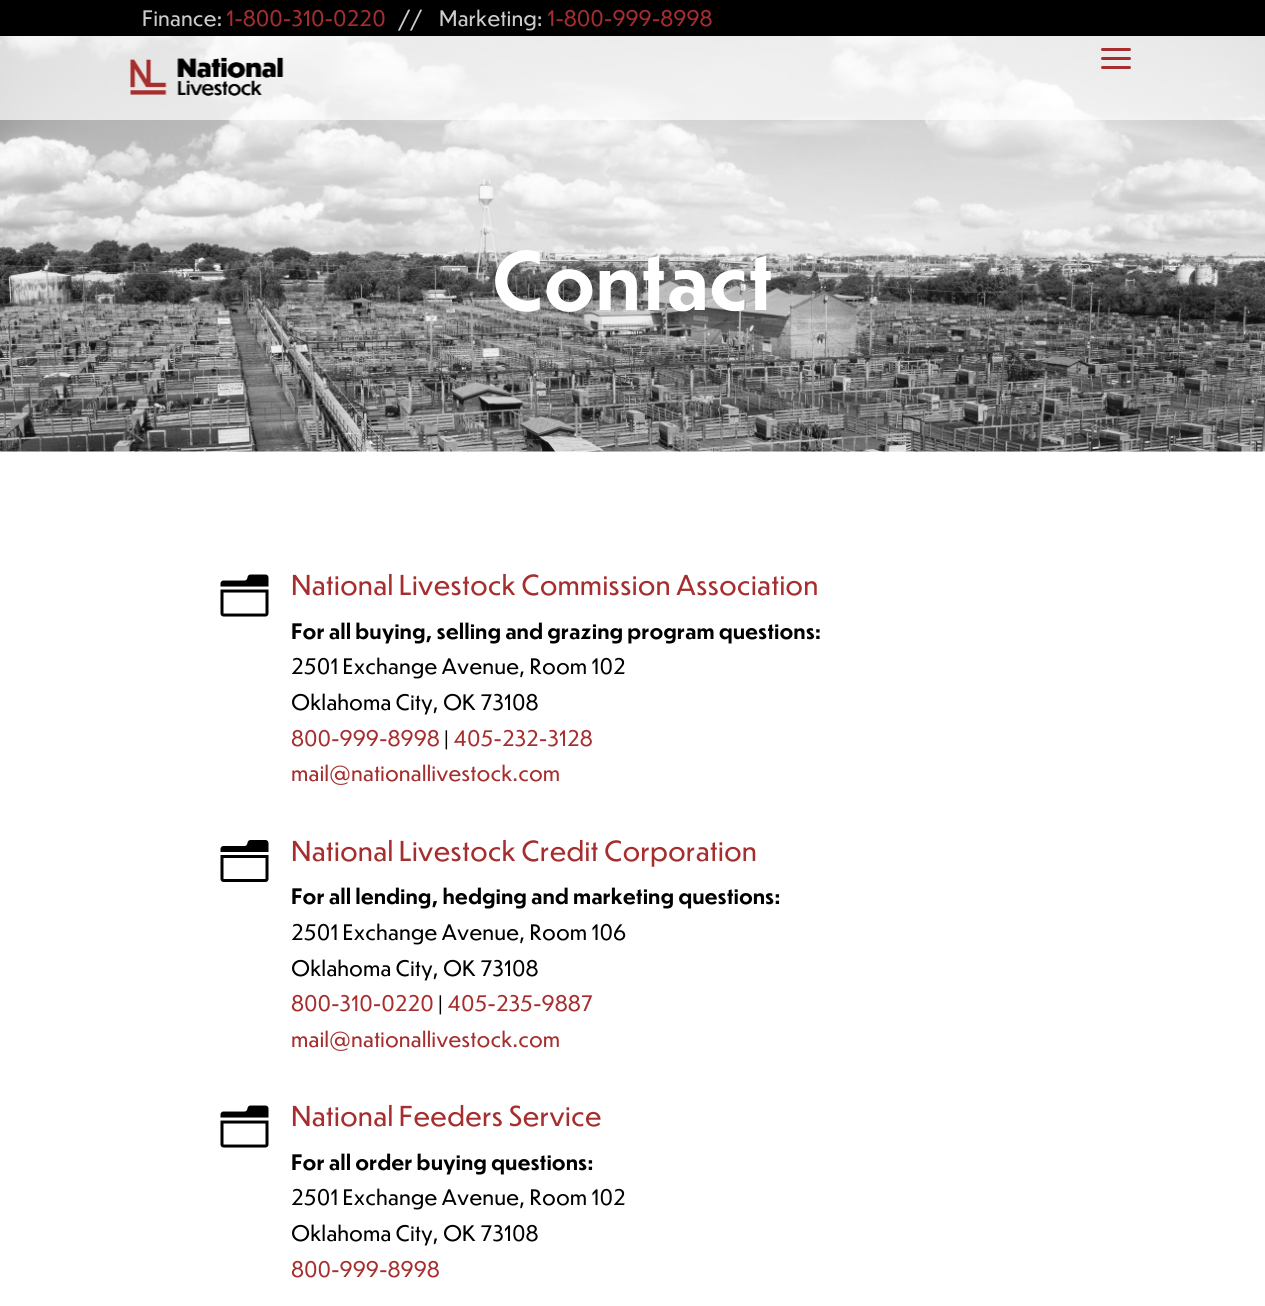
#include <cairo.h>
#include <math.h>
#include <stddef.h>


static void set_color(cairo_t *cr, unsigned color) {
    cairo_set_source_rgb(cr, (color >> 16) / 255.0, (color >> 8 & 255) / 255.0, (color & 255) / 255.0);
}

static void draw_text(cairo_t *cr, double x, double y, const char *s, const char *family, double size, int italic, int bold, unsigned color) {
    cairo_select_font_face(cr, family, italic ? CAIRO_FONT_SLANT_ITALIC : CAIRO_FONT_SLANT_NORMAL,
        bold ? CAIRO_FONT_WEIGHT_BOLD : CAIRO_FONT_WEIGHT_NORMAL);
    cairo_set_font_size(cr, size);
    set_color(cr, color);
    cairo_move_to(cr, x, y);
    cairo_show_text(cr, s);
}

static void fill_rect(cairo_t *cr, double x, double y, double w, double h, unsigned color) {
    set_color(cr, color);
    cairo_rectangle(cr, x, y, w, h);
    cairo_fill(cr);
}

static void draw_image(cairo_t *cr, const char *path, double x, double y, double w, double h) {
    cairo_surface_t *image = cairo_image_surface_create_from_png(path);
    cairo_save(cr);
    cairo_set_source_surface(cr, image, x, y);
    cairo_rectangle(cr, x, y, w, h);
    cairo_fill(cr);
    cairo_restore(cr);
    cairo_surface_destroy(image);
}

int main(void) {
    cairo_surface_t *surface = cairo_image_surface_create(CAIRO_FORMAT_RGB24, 1265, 1306);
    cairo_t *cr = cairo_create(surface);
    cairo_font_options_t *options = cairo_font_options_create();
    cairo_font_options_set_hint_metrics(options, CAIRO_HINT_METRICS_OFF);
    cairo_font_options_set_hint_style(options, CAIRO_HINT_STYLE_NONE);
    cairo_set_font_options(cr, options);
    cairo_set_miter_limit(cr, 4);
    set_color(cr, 0x000000);
    cairo_paint(cr);
    draw_text(cr, 142, 26, "Finance:", "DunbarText", 21, 0, 0, 0xCCCCCC);
    draw_text(cr, 226, 26, "1-800-310-0220", "DunbarText", 21, 0, 0, 0xA62E2E);
    draw_text(cr, 399, 26, "//", "DunbarText", 21, 0, 0, 0xCCCCCC);
    draw_text(cr, 439, 26, "Marketing:", "DunbarText", 21, 0, 0, 0xCCCCCC);
    draw_text(cr, 547, 26, "1-800-999-8998", "DunbarText", 21, 0, 0, 0xA62E2E);
    fill_rect(cr, 0, 451, 1265, 855, 0xFFFFFF);
    draw_image(cr, "assets/img3.png", 0, 36, 1265, 416);
    cairo_set_source_rgba(cr, 1, 1, 1, 0.69);
    cairo_rectangle(cr, 0, 36, 1265, 84);
    cairo_fill(cr);
    draw_image(cr, "assets/img1.png", 130, 57, 154, 39);
    draw_image(cr, "assets/img2.png", 1101, 48, 30, 21);
    draw_text(cr, 492, 310, "Contact", "DunbarText", 78, 0, 1, 0xFFFFFF);
    draw_image(cr, "assets/img4.png", 220, 574, 49, 43);
    draw_text(cr, 291, 595, "National Livestock Commission Association", "DunbarText", 27, 0, 0, 0xA62E2E);
    draw_text(cr, 291, 639, "For all buying, selling and grazing program questions:", "DunbarText", 21, 0, 1, 0x000000);
    draw_text(cr, 291, 674, "2501 Exchange Avenue, Room 102", "DunbarText", 21, 0, 0, 0x000000);
    draw_text(cr, 291, 710, "Oklahoma City, OK 73108", "DunbarText", 21, 0, 0, 0x000000);
    draw_text(cr, 291, 746, "800-999-8998", "DunbarText", 21, 0, 0, 0xA62E2E);
    draw_text(cr, 444, 746, "|", "DunbarText", 21, 0, 0, 0x000000);
    draw_text(cr, 453, 746, "405-232-3128", "DunbarText", 21, 0, 0, 0xA62E2E);
    draw_text(cr, 291, 781, "mail@nationallivestock.com", "DunbarText", 21, 0, 0, 0xA62E2E);
    draw_image(cr, "assets/img5.png", 220, 840, 49, 42);
    draw_text(cr, 291, 861, "National Livestock Credit Corporation", "DunbarText", 27, 0, 0, 0xA62E2E);
    draw_text(cr, 291, 904, "For all lending, hedging and marketing questions:", "DunbarText", 21, 0, 1, 0x000000);
    draw_text(cr, 291, 940, "2501 Exchange Avenue, Room 106", "DunbarText", 21, 0, 0, 0x000000);
    draw_text(cr, 291, 976, "Oklahoma City, OK 73108", "DunbarText", 21, 0, 0, 0x000000);
    draw_text(cr, 291, 1011, "800-310-0220", "DunbarText", 21, 0, 0, 0xA62E2E);
    draw_text(cr, 438, 1011, "|", "DunbarText", 21, 0, 0, 0x000000);
    draw_text(cr, 447, 1011, "405-235-9887", "DunbarText", 21, 0, 0, 0xA62E2E);
    draw_text(cr, 291, 1047, "mail@nationallivestock.com", "DunbarText", 21, 0, 0, 0xA62E2E);
    draw_image(cr, "assets/img4.png", 220, 1105, 49, 43);
    draw_text(cr, 291, 1126, "National Feeders Service", "DunbarText", 27, 0, 0, 0xA62E2E);
    draw_text(cr, 291, 1170, "For all order buying questions:", "DunbarText", 21, 0, 1, 0x000000);
    draw_text(cr, 291, 1205, "2501 Exchange Avenue, Room 102", "DunbarText", 21, 0, 0, 0x000000);
    draw_text(cr, 291, 1241, "Oklahoma City, OK 73108", "DunbarText", 21, 0, 0, 0x000000);
    draw_text(cr, 291, 1277, "800-999-8998", "DunbarText", 21, 0, 0, 0xA62E2E);
    cairo_surface_write_to_png(surface, "output.png");
    cairo_font_options_destroy(options);
    cairo_destroy(cr);
    cairo_surface_destroy(surface);
    return 0;
}
